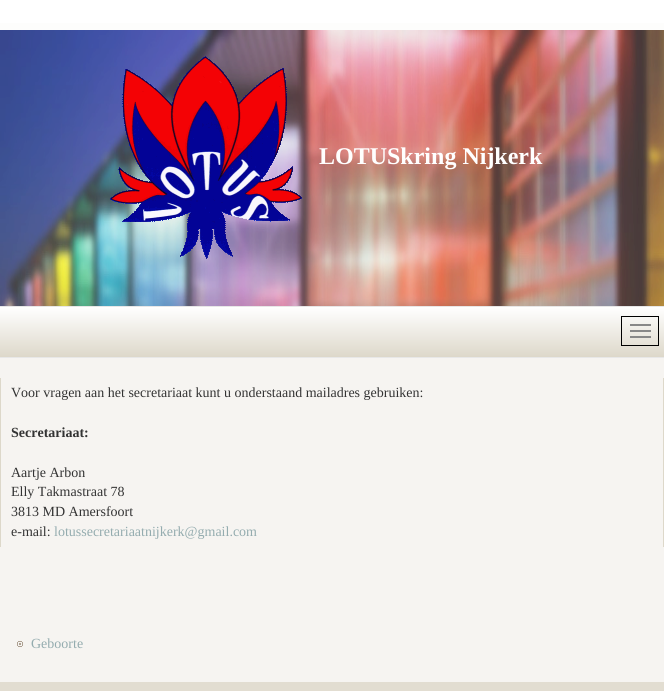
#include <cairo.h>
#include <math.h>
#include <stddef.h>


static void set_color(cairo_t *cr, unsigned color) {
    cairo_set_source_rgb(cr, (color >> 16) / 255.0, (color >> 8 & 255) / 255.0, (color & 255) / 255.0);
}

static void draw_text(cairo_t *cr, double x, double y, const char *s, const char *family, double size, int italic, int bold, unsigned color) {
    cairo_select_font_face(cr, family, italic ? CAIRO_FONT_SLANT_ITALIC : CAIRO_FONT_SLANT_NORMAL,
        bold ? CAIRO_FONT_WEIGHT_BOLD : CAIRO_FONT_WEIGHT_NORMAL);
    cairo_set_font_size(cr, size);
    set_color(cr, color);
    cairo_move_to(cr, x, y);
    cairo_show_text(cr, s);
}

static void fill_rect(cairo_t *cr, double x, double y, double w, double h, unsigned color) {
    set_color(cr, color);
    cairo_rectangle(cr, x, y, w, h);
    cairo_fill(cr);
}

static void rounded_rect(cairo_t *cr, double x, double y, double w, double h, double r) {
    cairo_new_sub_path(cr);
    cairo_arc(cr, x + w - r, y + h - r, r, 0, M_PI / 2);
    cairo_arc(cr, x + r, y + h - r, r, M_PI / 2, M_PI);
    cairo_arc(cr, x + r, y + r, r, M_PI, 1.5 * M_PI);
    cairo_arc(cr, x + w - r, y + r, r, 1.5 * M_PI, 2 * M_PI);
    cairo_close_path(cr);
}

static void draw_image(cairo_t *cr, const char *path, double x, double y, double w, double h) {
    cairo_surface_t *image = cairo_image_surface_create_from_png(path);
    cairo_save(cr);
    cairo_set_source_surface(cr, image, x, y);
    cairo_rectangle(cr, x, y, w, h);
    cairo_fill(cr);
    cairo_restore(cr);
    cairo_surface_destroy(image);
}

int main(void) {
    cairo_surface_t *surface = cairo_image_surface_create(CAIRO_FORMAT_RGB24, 664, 691);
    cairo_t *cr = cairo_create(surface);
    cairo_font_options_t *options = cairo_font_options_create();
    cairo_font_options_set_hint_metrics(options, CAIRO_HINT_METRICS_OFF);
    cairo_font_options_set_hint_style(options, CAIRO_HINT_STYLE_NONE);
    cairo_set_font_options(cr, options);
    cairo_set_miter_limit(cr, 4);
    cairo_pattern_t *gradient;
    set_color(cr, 0xFFFFFF);
    cairo_paint(cr);
    gradient = cairo_pattern_create_linear(332, 0, 332, 691);
    cairo_pattern_add_color_stop_rgba(gradient, 0, 1, 1, 1, 1);
    cairo_pattern_add_color_stop_rgba(gradient, 1, 0.808, 0.776, 0.702, 1);
    cairo_set_source(cr, gradient);
    cairo_pattern_destroy(gradient);
    cairo_rectangle(cr, 0, 23, 664, 8);
    cairo_fill(cr);
    set_color(cr, 0xF6F4F1);
    rounded_rect(cr, 0, 30, 664, 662, 1);
    cairo_fill(cr);
    draw_image(cr, "assets/img1.png", 0, 30, 664, 276);
    draw_image(cr, "assets/img2.png", 110, 56, 192, 203);
    draw_text(cr, 319, 164, "LOTUSkring Nijkerk", "Liberation Serif", 24, 0, 1, 0xFFFFFF);
    gradient = cairo_pattern_create_linear(332, 307, 332, 357);
    cairo_pattern_add_color_stop_rgba(gradient, 0, 1, 1, 1, 1);
    cairo_pattern_add_color_stop_rgba(gradient, 1, 0.867, 0.847, 0.792, 1);
    cairo_set_source(cr, gradient);
    cairo_pattern_destroy(gradient);
    cairo_rectangle(cr, 0, 307, 664, 50);
    cairo_fill(cr);
    fill_rect(cr, 0, 306, 664, 1, 0xE7E7E7);
    fill_rect(cr, 0, 357, 664, 1, 0xE7E7E7);
    cairo_rectangle(cr, 621.5, 316.5, 37, 29);
    set_color(cr, 0x000000);
    cairo_set_line_width(cr, 1);
    cairo_stroke(cr);
    fill_rect(cr, 630, 324, 21, 2, 0x888888);
    fill_rect(cr, 630, 330, 21, 2, 0x888888);
    fill_rect(cr, 630, 336, 21, 2, 0x888888);
    fill_rect(cr, 663, 378, 1, 169, 0xDDD8CA);
    fill_rect(cr, 0, 378, 1, 169, 0xDDD8CA);
    draw_text(cr, 11, 397, "Voor vragen aan het secretariaat kunt u onderstaand mailadres gebruiken:", "Liberation Serif", 14, 0, 0, 0x333333);
    draw_text(cr, 11, 437, "Secretariaat:", "Liberation Serif", 14, 0, 1, 0x333333);
    draw_text(cr, 11, 477, "Aartje Arbon", "Liberation Serif", 14, 0, 0, 0x333333);
    draw_text(cr, 11, 496, "Elly Takmastraat 78", "Liberation Serif", 14, 0, 0, 0x333333);
    draw_text(cr, 11, 516, "3813 MD Amersfoort", "Liberation Serif", 14, 0, 0, 0x333333);
    draw_text(cr, 11, 536, "e-mail:", "Liberation Serif", 14, 0, 0, 0x333333);
    draw_text(cr, 54, 536, "lotussecretariaatnijkerk@gmail.com", "Liberation Serif", 14, 0, 0, 0x94ACAF);
    draw_image(cr, "assets/img3.png", 17, 641, 6, 6);
    draw_text(cr, 31, 648, "Geboorte", "Liberation Serif", 14, 0, 0, 0x94ACAF);
    fill_rect(cr, 0, 682, 664, 9, 0xE2DDD1);
    cairo_surface_write_to_png(surface, "output.png");
    cairo_font_options_destroy(options);
    cairo_destroy(cr);
    cairo_surface_destroy(surface);
    return 0;
}
